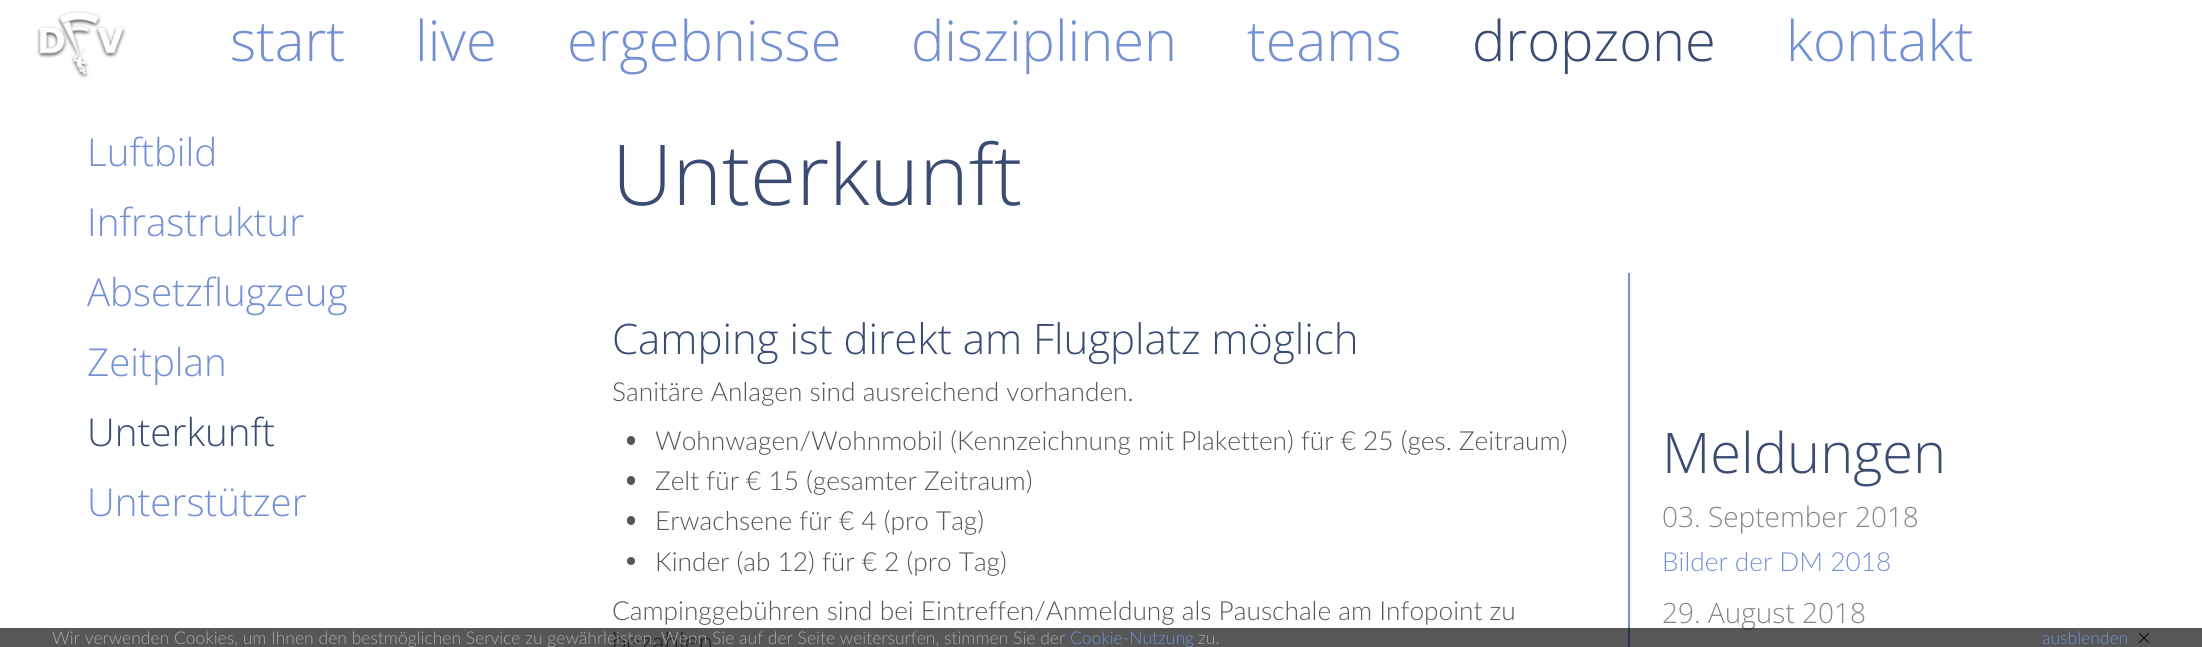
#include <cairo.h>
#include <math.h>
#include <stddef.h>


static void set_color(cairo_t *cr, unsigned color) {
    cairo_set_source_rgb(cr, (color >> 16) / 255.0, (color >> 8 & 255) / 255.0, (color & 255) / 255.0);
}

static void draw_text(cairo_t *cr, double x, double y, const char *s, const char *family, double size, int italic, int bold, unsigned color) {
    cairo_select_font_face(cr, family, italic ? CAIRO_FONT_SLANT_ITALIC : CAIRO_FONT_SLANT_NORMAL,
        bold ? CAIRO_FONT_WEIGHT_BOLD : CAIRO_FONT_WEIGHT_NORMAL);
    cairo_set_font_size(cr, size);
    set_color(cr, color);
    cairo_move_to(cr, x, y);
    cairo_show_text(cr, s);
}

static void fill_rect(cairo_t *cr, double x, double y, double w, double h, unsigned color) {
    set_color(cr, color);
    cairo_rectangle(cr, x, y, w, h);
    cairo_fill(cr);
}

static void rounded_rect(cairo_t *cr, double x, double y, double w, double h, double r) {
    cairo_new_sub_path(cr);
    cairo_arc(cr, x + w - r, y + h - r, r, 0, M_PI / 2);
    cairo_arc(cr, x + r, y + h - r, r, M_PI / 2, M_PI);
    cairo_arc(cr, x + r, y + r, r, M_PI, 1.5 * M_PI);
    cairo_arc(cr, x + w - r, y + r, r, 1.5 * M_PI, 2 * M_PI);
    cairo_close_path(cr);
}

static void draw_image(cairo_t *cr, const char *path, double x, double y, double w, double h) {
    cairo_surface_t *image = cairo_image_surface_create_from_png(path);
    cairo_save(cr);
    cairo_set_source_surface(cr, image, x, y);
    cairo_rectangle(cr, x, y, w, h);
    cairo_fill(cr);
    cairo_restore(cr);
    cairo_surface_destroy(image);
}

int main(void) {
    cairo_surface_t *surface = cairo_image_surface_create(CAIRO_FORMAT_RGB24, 2202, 647);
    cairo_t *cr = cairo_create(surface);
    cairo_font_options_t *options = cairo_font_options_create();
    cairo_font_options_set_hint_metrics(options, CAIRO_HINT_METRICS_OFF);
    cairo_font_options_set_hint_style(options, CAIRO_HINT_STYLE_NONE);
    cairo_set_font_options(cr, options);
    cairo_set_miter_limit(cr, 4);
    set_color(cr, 0xFFFFFF);
    cairo_paint(cr);
    draw_image(cr, "assets/img1.png", 37, 11, 89, 67);
    draw_text(cr, 230, 61, "start", "Open Sans Light", 56, 0, 0, 0x7490D4);
    draw_text(cr, 415, 61, "live", "Open Sans Light", 56, 0, 0, 0x7490D4);
    draw_text(cr, 567, 61, "ergebnisse", "Open Sans Light", 56, 0, 0, 0x7490D4);
    draw_text(cr, 911, 61, "disziplinen", "Open Sans Light", 56, 0, 0, 0x7490D4);
    draw_text(cr, 1247, 61, "teams", "Open Sans Light", 56, 0, 0, 0x7490D4);
    draw_text(cr, 1472, 61, "dropzone", "Open Sans Light", 56, 0, 0, 0x3B4C73);
    draw_text(cr, 1786, 61, "kontakt", "Open Sans Light", 56, 0, 0, 0x7490D4);
    draw_text(cr, 87, 166, "Luftbild", "Open Sans Light", 38.5, 0, 0, 0x7490D4);
    draw_text(cr, 87, 236, "Infrastruktur", "Open Sans Light", 38.5, 0, 0, 0x7490D4);
    draw_text(cr, 87, 306, "Absetzflugzeug", "Open Sans Light", 38.5, 0, 0, 0x7490D4);
    draw_text(cr, 87, 376, "Zeitplan", "Open Sans Light", 38.5, 0, 0, 0x7490D4);
    draw_text(cr, 87, 446, "Unterkunft", "Open Sans Light", 38.5, 0, 0, 0x3B4C73);
    draw_text(cr, 87, 516, "Unterstützer", "Open Sans Light", 38.5, 0, 0, 0x7490D4);
    draw_text(cr, 612, 205, "Unterkunft", "Open Sans Light", 84, 0, 0, 0x3B4C73);
    draw_text(cr, 612, 354, "Camping ist direkt am Flugplatz möglich", "Open Sans Light", 42, 0, 0, 0x3B4C73);
    draw_text(cr, 612, 401, "Sanitäre Anlagen sind ausreichend vorhanden.", "Lato Light", 26.25, 0, 0, 0x555555);
    rounded_rect(cr, 627, 436, 8, 9, 4);
    cairo_fill(cr);
    draw_text(cr, 655, 450, "Wohnwagen/Wohnmobil (Kennzeichnung mit Plaketten) für € 25 (ges. Zeitraum)", "Lato Light", 26.25, 0, 0, 0x555555);
    rounded_rect(cr, 627, 476, 8, 9, 4);
    cairo_fill(cr);
    draw_text(cr, 655, 490, "Zelt für € 15 (gesamter Zeitraum)", "Lato Light", 26.25, 0, 0, 0x555555);
    rounded_rect(cr, 627, 516, 8, 9, 4);
    cairo_fill(cr);
    draw_text(cr, 655, 530, "Erwachsene für € 4 (pro Tag)", "Lato Light", 26.25, 0, 0, 0x555555);
    cairo_new_path(cr);
    cairo_arc(cr, 631, 561, 4, 0, 2 * M_PI);
    cairo_fill(cr);
    draw_text(cr, 655, 571, "Kinder (ab 12) für € 2 (pro Tag)", "Lato Light", 26.25, 0, 0, 0x555555);
    draw_text(cr, 612, 620, "Campinggebühren sind bei Eintreffen/Anmeldung als Pauschale am Infopoint zu", "Lato Light", 26.25, 0, 0, 0x555555);
    draw_text(cr, 612, 651, "bezahlen", "Lato Light", 26.25, 0, 0, 0x555555);
    fill_rect(cr, 1628, 273, 2, 374, 0x7490D4);
    draw_text(cr, 1662, 473, "Meldungen", "Open Sans Light", 56, 0, 0, 0x3B4C73);
    draw_text(cr, 1662, 527, "03. September 2018", "Open Sans Light", 28, 0, 0, 0x888888);
    draw_text(cr, 1662, 571, "Bilder der DM 2018", "Lato Light", 26.25, 0, 0, 0x7490D4);
    draw_text(cr, 1662, 623, "29. August 2018", "Open Sans Light", 28, 0, 0, 0x888888);
    cairo_set_source_rgba(cr, 0, 0, 0, 0.66);
    cairo_rectangle(cr, 0, 628, 2202, 19);
    cairo_fill(cr);
    draw_text(cr, 52, 644, "Wir verwenden Cookies, um Ihnen den bestmöglichen Service zu gewährleisten. Wenn Sie auf der Seite weitersurfen, stimmen Sie der", "Lato Light", 17.5, 0, 0, 0xAAAAAA);
    draw_text(cr, 1070, 644, "Cookie-Nutzung", "Lato Light", 17.5, 0, 0, 0x7490D4);
    draw_text(cr, 1198, 644, "zu.", "Lato Light", 17.5, 0, 0, 0xAAAAAA);
    draw_text(cr, 2042, 644, "ausblenden", "Lato Light", 17.5, 0, 0, 0x7490D4);
    draw_text(cr, 2137, 646, "×", "Lato Light", 24, 0, 0, 0x000000);
    cairo_surface_write_to_png(surface, "output.png");
    cairo_font_options_destroy(options);
    cairo_destroy(cr);
    cairo_surface_destroy(surface);
    return 0;
}
